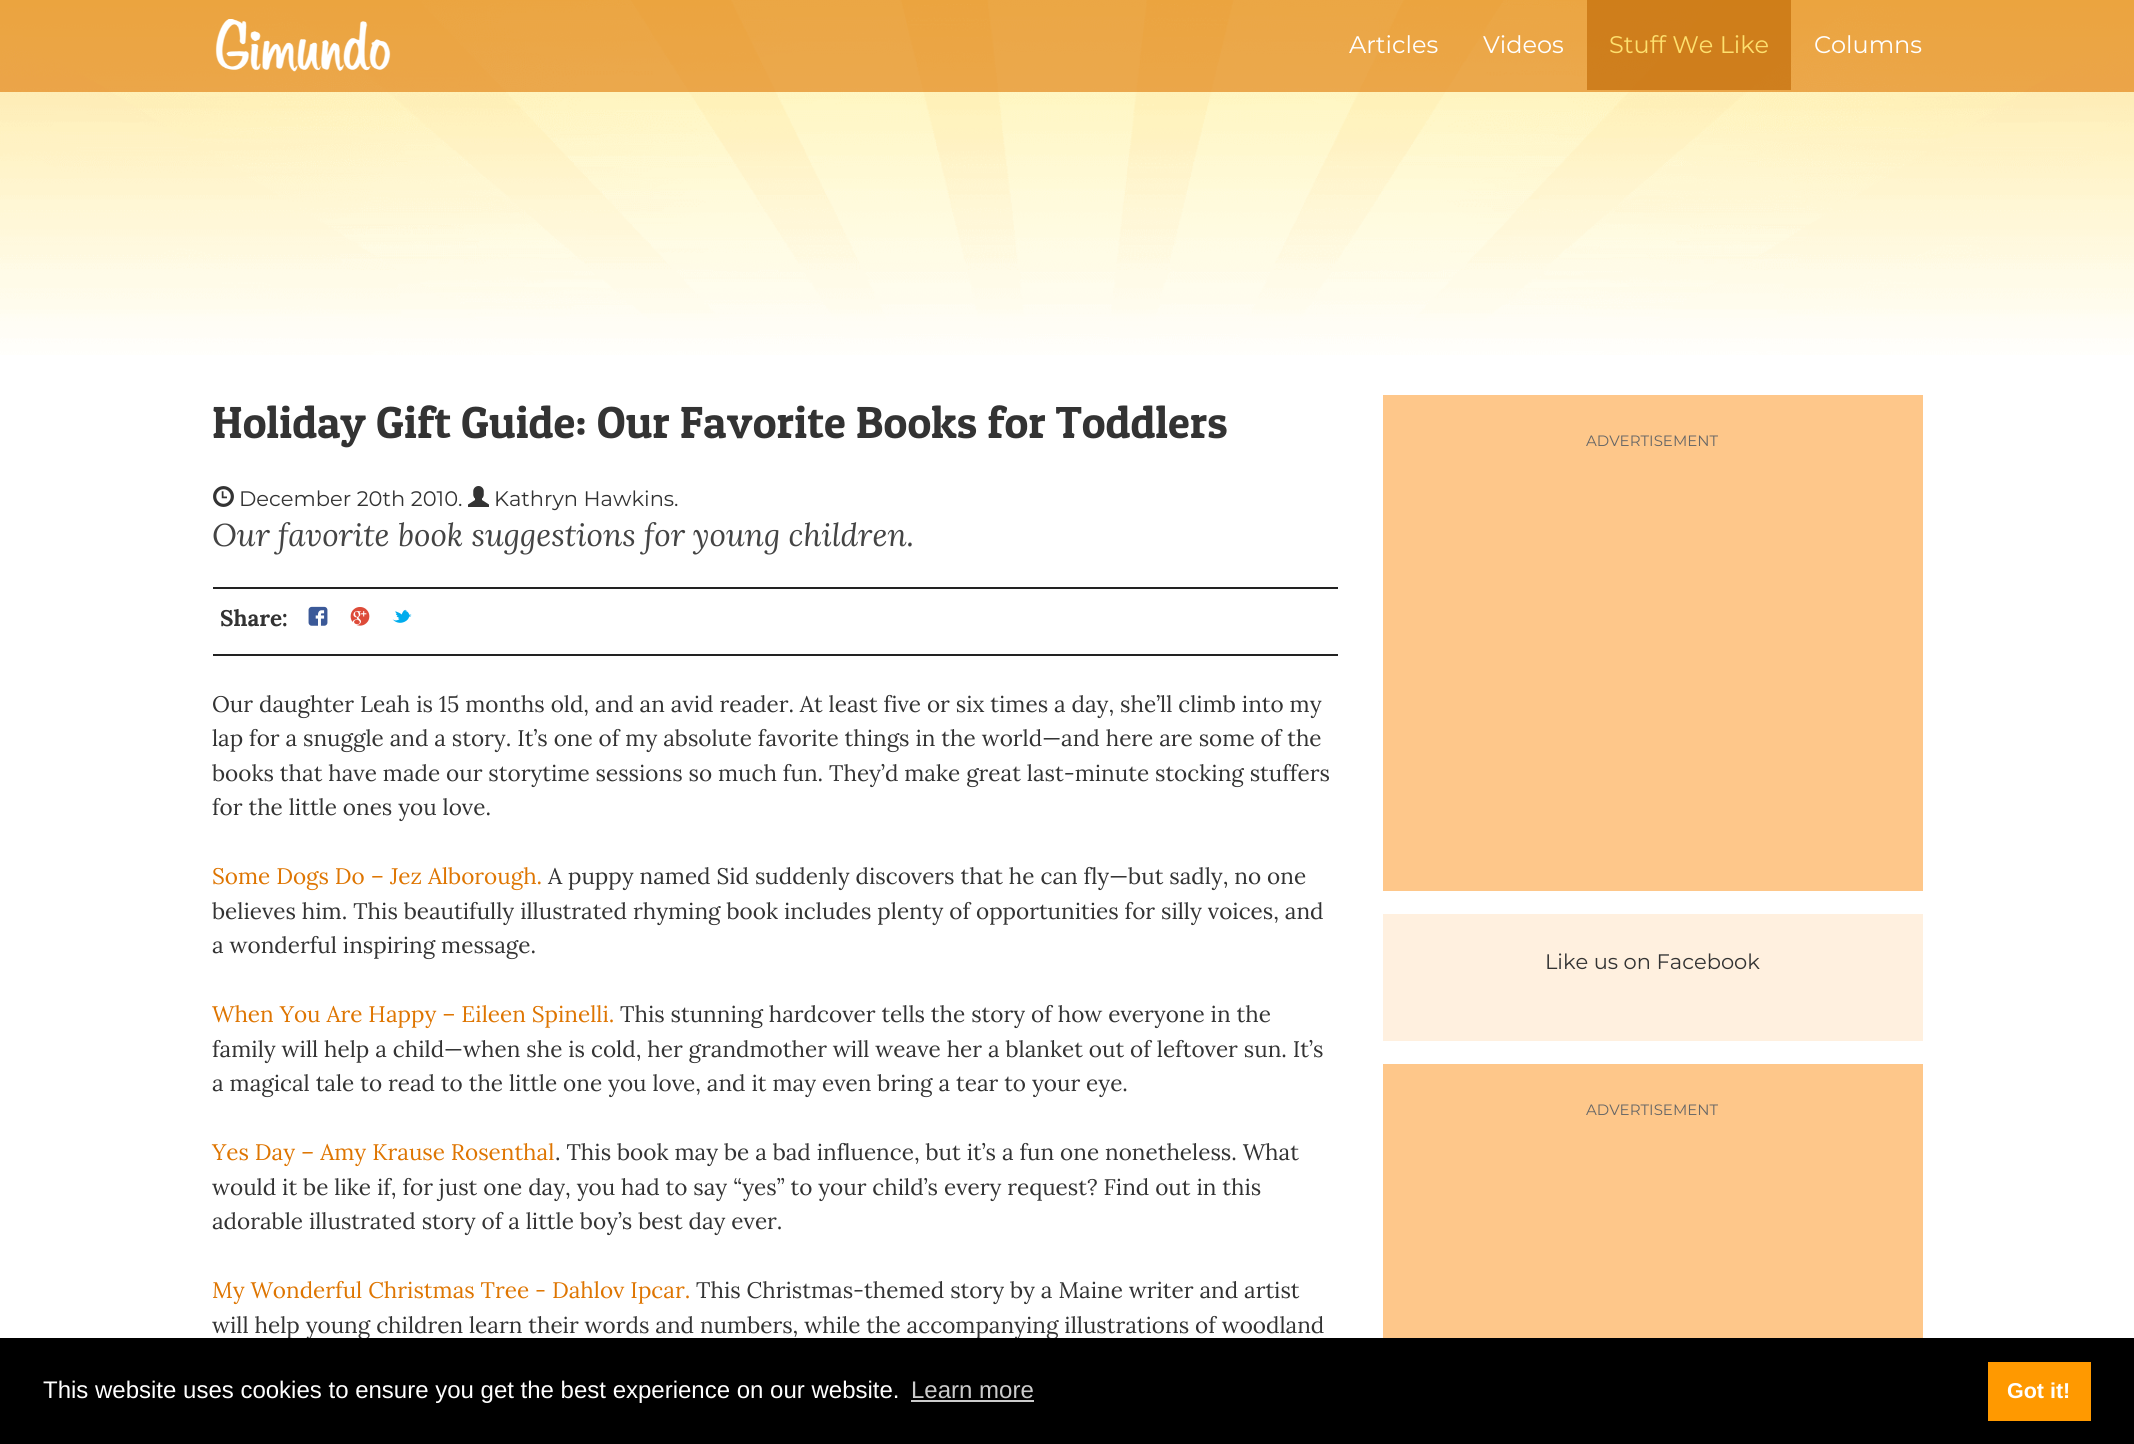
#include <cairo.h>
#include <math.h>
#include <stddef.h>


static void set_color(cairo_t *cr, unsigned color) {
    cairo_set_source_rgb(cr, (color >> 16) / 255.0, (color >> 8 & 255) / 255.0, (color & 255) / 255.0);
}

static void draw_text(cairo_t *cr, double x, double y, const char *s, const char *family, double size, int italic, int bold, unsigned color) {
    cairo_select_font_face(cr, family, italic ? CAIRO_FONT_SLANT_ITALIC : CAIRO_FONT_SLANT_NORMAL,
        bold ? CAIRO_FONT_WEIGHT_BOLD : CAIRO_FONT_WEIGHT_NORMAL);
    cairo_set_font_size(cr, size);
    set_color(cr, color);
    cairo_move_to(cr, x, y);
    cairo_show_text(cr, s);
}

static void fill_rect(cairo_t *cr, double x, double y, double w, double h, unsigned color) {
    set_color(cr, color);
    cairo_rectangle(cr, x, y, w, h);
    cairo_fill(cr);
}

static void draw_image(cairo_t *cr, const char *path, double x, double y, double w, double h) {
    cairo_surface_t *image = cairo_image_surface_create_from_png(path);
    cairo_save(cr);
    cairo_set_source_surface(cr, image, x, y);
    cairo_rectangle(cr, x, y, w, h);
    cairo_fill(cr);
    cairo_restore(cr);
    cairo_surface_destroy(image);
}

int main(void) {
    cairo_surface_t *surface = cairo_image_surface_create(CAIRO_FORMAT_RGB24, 2134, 1444);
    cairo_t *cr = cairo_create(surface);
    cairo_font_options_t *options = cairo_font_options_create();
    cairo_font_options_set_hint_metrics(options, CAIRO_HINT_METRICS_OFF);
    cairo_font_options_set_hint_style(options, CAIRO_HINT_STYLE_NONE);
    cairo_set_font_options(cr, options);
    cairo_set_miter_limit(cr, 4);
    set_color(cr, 0xFFFFFF);
    cairo_paint(cr);
    draw_image(cr, "assets/img1.png", 0, 0, 2134, 355);
    cairo_set_source_rgba(cr, 0.871, 0.459, 0.004, 0.6);
    cairo_rectangle(cr, 0, 0, 2134, 92);
    cairo_fill(cr);
    draw_image(cr, "assets/img2.png", 215, 19, 176, 53);
    draw_text(cr, 1349, 53, "Articles", "Montserrat Thin", 24, 0, 0, 0xFFFFFF);
    draw_text(cr, 1483, 53, "Videos", "Montserrat Thin", 24, 0, 0, 0xFFFFFF);
    cairo_set_source_rgba(cr, 0.741, 0.392, 0.004, 0.6);
    cairo_rectangle(cr, 1587, 0, 204, 90);
    cairo_fill(cr);
    draw_text(cr, 1609, 53, "Stuff We Like", "Montserrat Thin", 24, 0, 0, 0xFDE06E);
    draw_text(cr, 1814, 53, "Columns", "Montserrat Thin", 24, 0, 0, 0xFFFFFF);
    draw_text(cr, 212, 438, "Holiday Gift Guide: Our Favorite Books for Toddlers", "Patua One", 45, 0, 0, 0x333333);
    draw_image(cr, "assets/img3.png", 213, 486, 21, 21);
    draw_text(cr, 239, 506, "December 20th 2010.", "Montserrat Thin", 21, 0, 0, 0x333333);
    draw_image(cr, "assets/img4.png", 468, 486, 21, 21);
    draw_text(cr, 494, 506, "Kathryn Hawkins.", "Montserrat Thin", 21, 0, 0, 0x333333);
    draw_text(cr, 212, 546, "Our favorite book suggestions for young children.", "Lora", 31.5, 1, 0, 0x444444);
    fill_rect(cr, 213, 587, 1125, 2, 0x222222);
    fill_rect(cr, 213, 654, 1125, 2, 0x222222);
    draw_text(cr, 220, 626, "Share:", "Lora", 22.5, 0, 1, 0x333333);
    draw_image(cr, "assets/img5.png", 308, 606, 20, 20);
    draw_image(cr, "assets/img6.png", 350, 607, 20, 19);
    draw_image(cr, "assets/img7.png", 392, 609, 20, 14);
    draw_text(cr, 212, 712, "Our daughter Leah is 15 months old, and an avid reader. At least five or six times a day, she’ll climb into my", "Lora", 22.5, 0, 0, 0x333333);
    draw_text(cr, 212, 746, "lap for a snuggle and a story. It’s one of my absolute favorite things in the world—and here are some of the", "Lora", 22.5, 0, 0, 0x333333);
    draw_text(cr, 212, 781, "books that have made our storytime sessions so much fun. They’d make great last-minute stocking stuffers", "Lora", 22.5, 0, 0, 0x333333);
    draw_text(cr, 212, 815, "for the little ones you love.", "Lora", 22.5, 0, 0, 0x333333);
    draw_text(cr, 212, 884, "Some Dogs Do – Jez Alborough.", "Lora", 22.5, 0, 0, 0xDE7501);
    draw_text(cr, 548, 884, "A puppy named Sid suddenly discovers that he can fly—but sadly, no one", "Lora", 22.5, 0, 0, 0x333333);
    draw_text(cr, 212, 919, "believes him. This beautifully illustrated rhyming book includes plenty of opportunities for silly voices, and", "Lora", 22.5, 0, 0, 0x333333);
    draw_text(cr, 212, 953, "a wonderful inspiring message.", "Lora", 22.5, 0, 0, 0x333333);
    draw_text(cr, 212, 1022, "When You Are Happy – Eileen Spinelli.", "Lora", 22.5, 0, 0, 0xDE7501);
    draw_text(cr, 620, 1022, "This stunning hardcover tells the story of how everyone in the", "Lora", 22.5, 0, 0, 0x333333);
    draw_text(cr, 212, 1057, "family will help a child—when she is cold, her grandmother will weave her a blanket out of leftover sun. It’s", "Lora", 22.5, 0, 0, 0x333333);
    draw_text(cr, 212, 1091, "a magical tale to read to the little one you love, and it may even bring a tear to your eye.", "Lora", 22.5, 0, 0, 0x333333);
    draw_text(cr, 212, 1160, "Yes Day – Amy Krause Rosenthal", "Lora", 22.5, 0, 0, 0xDE7501);
    draw_text(cr, 555, 1160, ". This book may be a bad influence, but it’s a fun one nonetheless. What", "Lora", 22.5, 0, 0, 0x333333);
    draw_text(cr, 212, 1195, "would it be like if, for just one day, you had to say “yes” to your child’s every request? Find out in this", "Lora", 22.5, 0, 0, 0x333333);
    draw_text(cr, 212, 1229, "adorable illustrated story of a little boy’s best day ever.", "Lora", 22.5, 0, 0, 0x333333);
    draw_text(cr, 212, 1298, "My Wonderful Christmas Tree - Dahlov Ipcar.", "Lora", 22.5, 0, 0, 0xDE7501);
    draw_text(cr, 696, 1298, "This Christmas-themed story by a Maine writer and artist", "Lora", 22.5, 0, 0, 0x333333);
    draw_text(cr, 212, 1333, "will help young children learn their words and numbers, while the accompanying illustrations of woodland", "Lora", 22.5, 0, 0, 0x333333);
    fill_rect(cr, 1383, 395, 540, 496, 0xFEC78A);
    draw_text(cr, 1586, 446, "ADVERTISEMENT", "Montserrat Thin", 15, 0, 0, 0x666666);
    fill_rect(cr, 1383, 914, 540, 127, 0xFFF0DF);
    draw_text(cr, 1545, 969, "Like us on Facebook", "Montserrat Thin", 21, 0, 0, 0x333333);
    fill_rect(cr, 1383, 1064, 540, 274, 0xFEC78A);
    draw_text(cr, 1586, 1115, "ADVERTISEMENT", "Montserrat Thin", 15, 0, 0, 0x666666);
    fill_rect(cr, 0, 1338, 2134, 106, 0x000000);
    draw_text(cr, 43, 1398, "This website uses cookies to ensure you get the best experience on our website.", "Liberation Sans", 24, 0, 0, 0xFFFFFF);
    draw_text(cr, 911, 1398, "Learn more", "Liberation Sans", 24, 0, 0, 0xCCCCCC);
    fill_rect(cr, 911, 1400, 123, 2, 0xCCCCCC);
    fill_rect(cr, 1988, 1362, 103, 59, 0xFF9900);
    draw_text(cr, 2007, 1398, "Got it!", "Liberation Sans", 21.5, 0, 1, 0xFFFFFF);
    cairo_surface_write_to_png(surface, "output.png");
    cairo_font_options_destroy(options);
    cairo_destroy(cr);
    cairo_surface_destroy(surface);
    return 0;
}
